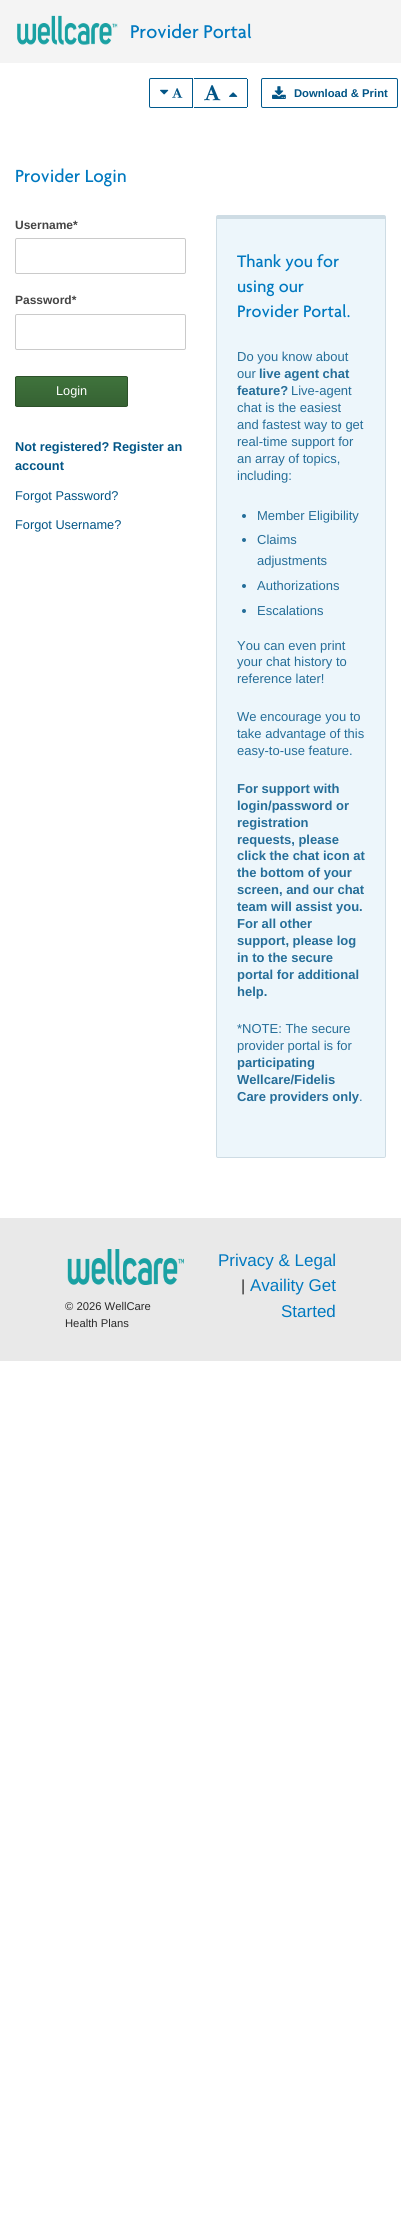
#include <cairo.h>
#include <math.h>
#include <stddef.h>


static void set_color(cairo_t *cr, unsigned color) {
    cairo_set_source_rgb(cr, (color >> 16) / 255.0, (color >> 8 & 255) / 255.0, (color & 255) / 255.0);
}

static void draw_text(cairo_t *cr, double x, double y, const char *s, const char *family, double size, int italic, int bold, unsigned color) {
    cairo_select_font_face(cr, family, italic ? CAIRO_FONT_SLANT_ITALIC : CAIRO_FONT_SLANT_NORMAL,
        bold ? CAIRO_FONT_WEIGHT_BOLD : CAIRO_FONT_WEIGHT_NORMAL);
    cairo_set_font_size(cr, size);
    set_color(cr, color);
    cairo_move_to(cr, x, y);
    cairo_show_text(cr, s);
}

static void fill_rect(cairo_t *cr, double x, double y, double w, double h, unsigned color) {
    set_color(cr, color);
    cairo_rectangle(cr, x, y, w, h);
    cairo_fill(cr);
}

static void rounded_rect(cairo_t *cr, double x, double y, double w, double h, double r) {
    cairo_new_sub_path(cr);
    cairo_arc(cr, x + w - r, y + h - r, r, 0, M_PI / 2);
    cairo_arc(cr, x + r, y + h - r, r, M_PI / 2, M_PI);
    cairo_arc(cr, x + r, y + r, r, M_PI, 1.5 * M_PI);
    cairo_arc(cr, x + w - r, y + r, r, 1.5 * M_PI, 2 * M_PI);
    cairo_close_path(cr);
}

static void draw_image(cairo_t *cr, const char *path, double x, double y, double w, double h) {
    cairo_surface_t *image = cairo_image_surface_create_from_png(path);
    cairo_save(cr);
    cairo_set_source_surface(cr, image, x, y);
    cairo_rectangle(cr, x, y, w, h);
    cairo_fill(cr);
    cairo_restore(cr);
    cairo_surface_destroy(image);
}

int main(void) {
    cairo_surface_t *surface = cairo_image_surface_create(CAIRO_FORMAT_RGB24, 401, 2229);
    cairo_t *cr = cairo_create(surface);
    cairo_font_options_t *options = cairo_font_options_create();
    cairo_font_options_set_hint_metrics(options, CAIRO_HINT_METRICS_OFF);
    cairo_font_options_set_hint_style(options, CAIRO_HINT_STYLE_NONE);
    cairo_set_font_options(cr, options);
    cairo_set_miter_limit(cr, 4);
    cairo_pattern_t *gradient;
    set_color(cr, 0xFFFFFF);
    cairo_paint(cr);
    fill_rect(cr, 0, 0, 401, 63, 0xF4F4F4);
    draw_image(cr, "assets/img1.png", 17, 15, 101, 30);
    draw_text(cr, 130, 38, "Provider Portal", "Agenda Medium", 20, 0, 0, 0x0079C0);
    cairo_new_path(cr);
    cairo_move_to(cr, 151, 78.5);
    cairo_line_to(cr, 192.5, 78.5);
    cairo_line_to(cr, 192.5, 107.5);
    cairo_line_to(cr, 151, 107.5);
    cairo_curve_to(cr, 150, 107.5, 149.5, 107, 149.5, 106);
    cairo_line_to(cr, 149.5, 80);
    cairo_curve_to(cr, 149.5, 79, 150, 78.5, 151, 78.5);
    cairo_close_path(cr);
    set_color(cr, 0x00598D);
    cairo_set_line_width(cr, 1);
    cairo_stroke(cr);
    draw_image(cr, "assets/img2.png", 160, 89, 9, 6);
    draw_image(cr, "assets/img3.png", 172, 88, 11, 10);
    fill_rect(cr, 194, 78, 53, 1, 0x00598D);
    fill_rect(cr, 247, 79, 1, 28, 0x00598D);
    fill_rect(cr, 194, 107, 53, 1, 0x00598D);
    draw_image(cr, "assets/img4.png", 204, 85, 17, 16);
    draw_image(cr, "assets/img5.png", 229, 92, 9, 5);
    rounded_rect(cr, 261.5, 78.5, 136, 29, 1.5);
    cairo_stroke(cr);
    draw_image(cr, "assets/img6.png", 272, 86, 14, 13);
    draw_text(cr, 294, 97, "Download & Print", "Liberation Sans", 11.25, 0, 1, 0x025586);
    draw_text(cr, 15, 182, "Provider Login", "Agenda Medium", 19, 0, 0, 0x0079C0);
    draw_text(cr, 15, 229, "Username*", "Liberation Sans", 12, 0, 1, 0x444444);
    rounded_rect(cr, 15.5, 238.5, 170, 35, 1.5);
    set_color(cr, 0xCACACA);
    cairo_stroke(cr);
    draw_text(cr, 15, 304, "Password*", "Liberation Sans", 12, 0, 1, 0x444444);
    rounded_rect(cr, 15.5, 314.5, 170, 35, 1.5);
    set_color(cr, 0xCACACA);
    cairo_stroke(cr);
    cairo_save(cr);
    rounded_rect(cr, 15, 376, 113, 31, 2);
    cairo_clip(cr);
    gradient = cairo_pattern_create_linear(72, 377, 72, 406);
    cairo_pattern_add_color_stop_rgba(gradient, 0, 0.247, 0.451, 0.235, 1);
    cairo_pattern_add_color_stop_rgba(gradient, 1, 0.212, 0.384, 0.2, 1);
    cairo_set_source(cr, gradient);
    cairo_pattern_destroy(gradient);
    cairo_rectangle(cr, 15, 377, 113, 29);
    cairo_fill(cr);
    cairo_restore(cr);
    rounded_rect(cr, 15.5, 376.5, 112, 30, 1.5);
    set_color(cr, 0x2D512A);
    cairo_stroke(cr);
    draw_text(cr, 56, 395, "Login", "Liberation Sans", 12.75, 0, 0, 0xFFFFFF);
    draw_text(cr, 15, 451, "Not registered? Register an", "Liberation Sans", 12.75, 0, 1, 0x025586);
    draw_text(cr, 15, 470, "account", "Liberation Sans", 12.75, 0, 1, 0x025586);
    draw_text(cr, 15, 500, "Forgot Password?", "Liberation Sans", 12.75, 0, 0, 0x025586);
    draw_text(cr, 15, 529, "Forgot Username?", "Liberation Sans", 12.75, 0, 0, 0x025586);
    set_color(cr, 0xEDF6FB);
    cairo_new_path(cr);
    cairo_move_to(cr, 218, 219);
    cairo_line_to(cr, 385, 219);
    cairo_line_to(cr, 385, 1156);
    cairo_curve_to(cr, 385, 1157, 385, 1157, 384, 1157);
    cairo_line_to(cr, 218, 1157);
    cairo_curve_to(cr, 217, 1157, 217, 1157, 217, 1156);
    cairo_line_to(cr, 217, 219);
    cairo_close_path(cr);
    cairo_fill(cr);
    rounded_rect(cr, 216.5, 215.5, 169, 942, 1.5);
    set_color(cr, 0xCEDCE4);
    cairo_stroke(cr);
    fill_rect(cr, 217, 216, 168, 3, 0xCEDCE4);
    draw_text(cr, 237, 267, "Thank you for", "Agenda Medium", 18, 0, 0, 0x0079C0);
    draw_text(cr, 237, 292, "using our", "Agenda Medium", 18, 0, 0, 0x0079C0);
    draw_text(cr, 237, 317, "Provider Portal.", "Agenda Medium", 18, 0, 0, 0x0079C0);
    draw_text(cr, 237, 361, "Do you know about", "Liberation Sans", 13, 0, 0, 0x256E99);
    draw_text(cr, 237, 378, "our", "Liberation Sans", 13, 0, 0, 0x256E99);
    draw_text(cr, 259, 378, "live agent chat", "Liberation Sans", 13, 0, 1, 0x256E99);
    draw_text(cr, 237, 395, "feature?", "Liberation Sans", 13, 0, 1, 0x256E99);
    draw_text(cr, 291, 395, "Live-agent", "Liberation Sans", 13, 0, 0, 0x256E99);
    draw_text(cr, 237, 412, "chat is the easiest", "Liberation Sans", 13, 0, 0, 0x256E99);
    draw_text(cr, 237, 429, "and fastest way to get", "Liberation Sans", 13, 0, 0, 0x256E99);
    draw_text(cr, 237, 446, "real-time support for", "Liberation Sans", 13, 0, 0, 0x256E99);
    draw_text(cr, 237, 463, "an array of topics,", "Liberation Sans", 13, 0, 0, 0x256E99);
    draw_text(cr, 237, 480, "including:", "Liberation Sans", 13, 0, 0, 0x256E99);
    cairo_new_path(cr);
    cairo_arc(cr, 244, 516, 2, 0, 2 * M_PI);
    cairo_fill(cr);
    draw_text(cr, 257, 520, "Member Eligibility", "Liberation Sans", 13, 0, 0, 0x256E99);
    cairo_new_path(cr);
    cairo_arc(cr, 244, 540, 2, 0, 2 * M_PI);
    cairo_fill(cr);
    draw_text(cr, 257, 544, "Claims", "Liberation Sans", 13, 0, 0, 0x256E99);
    draw_text(cr, 257, 565, "adjustments", "Liberation Sans", 13, 0, 0, 0x256E99);
    cairo_new_path(cr);
    cairo_arc(cr, 244, 586, 2, 0, 2 * M_PI);
    cairo_fill(cr);
    draw_text(cr, 257, 590, "Authorizations", "Liberation Sans", 13, 0, 0, 0x256E99);
    cairo_new_path(cr);
    cairo_arc(cr, 244, 611, 2, 0, 2 * M_PI);
    cairo_fill(cr);
    draw_text(cr, 257, 615, "Escalations", "Liberation Sans", 13, 0, 0, 0x256E99);
    draw_text(cr, 237, 650, "You can even print", "Liberation Sans", 13, 0, 0, 0x256E99);
    draw_text(cr, 237, 666, "your chat history to", "Liberation Sans", 13, 0, 0, 0x256E99);
    draw_text(cr, 237, 683, "reference later!", "Liberation Sans", 13, 0, 0, 0x256E99);
    draw_text(cr, 237, 721, "We encourage you to", "Liberation Sans", 13, 0, 0, 0x256E99);
    draw_text(cr, 237, 738, "take advantage of this", "Liberation Sans", 13, 0, 0, 0x256E99);
    draw_text(cr, 237, 755, "easy-to-use feature.", "Liberation Sans", 13, 0, 0, 0x256E99);
    draw_text(cr, 237, 793, "For support with", "Liberation Sans", 13, 0, 1, 0x256E99);
    draw_text(cr, 237, 810, "login/password or", "Liberation Sans", 13, 0, 1, 0x256E99);
    draw_text(cr, 237, 827, "registration", "Liberation Sans", 13, 0, 1, 0x256E99);
    draw_text(cr, 237, 844, "requests, please", "Liberation Sans", 13, 0, 1, 0x256E99);
    draw_text(cr, 237, 860, "click the chat icon at", "Liberation Sans", 13, 0, 1, 0x256E99);
    draw_text(cr, 237, 877, "the bottom of your", "Liberation Sans", 13, 0, 1, 0x256E99);
    draw_text(cr, 237, 894, "screen, and our chat", "Liberation Sans", 13, 0, 1, 0x256E99);
    draw_text(cr, 237, 911, "team will assist you.", "Liberation Sans", 13, 0, 1, 0x256E99);
    draw_text(cr, 237, 928, "For all other", "Liberation Sans", 13, 0, 1, 0x256E99);
    draw_text(cr, 237, 945, "support, please log", "Liberation Sans", 13, 0, 1, 0x256E99);
    draw_text(cr, 237, 962, "in to the secure", "Liberation Sans", 13, 0, 1, 0x256E99);
    draw_text(cr, 237, 979, "portal for additional", "Liberation Sans", 13, 0, 1, 0x256E99);
    draw_text(cr, 237, 996, "help.", "Liberation Sans", 13, 0, 1, 0x256E99);
    draw_text(cr, 237, 1033, "*NOTE: The secure", "Liberation Sans", 13, 0, 0, 0x256E99);
    draw_text(cr, 237, 1050, "provider portal is for", "Liberation Sans", 13, 0, 0, 0x256E99);
    draw_text(cr, 237, 1067, "participating", "Liberation Sans", 13, 0, 1, 0x256E99);
    draw_text(cr, 237, 1084, "Wellcare/Fidelis", "Liberation Sans", 13, 0, 1, 0x256E99);
    draw_text(cr, 237, 1101, "Care providers only", "Liberation Sans", 13, 0, 1, 0x256E99);
    draw_text(cr, 359, 1101, ".", "Liberation Sans", 13, 0, 0, 0x256E99);
    fill_rect(cr, 0, 1218, 401, 143, 0xE9E9E9);
    draw_image(cr, "assets/img7.png", 67, 1249, 117, 36);
    draw_text(cr, 65, 1310, "© 2026 WellCare", "Liberation Sans", 11.25, 0, 0, 0x2A2A2A);
    draw_text(cr, 65, 1327, "Health Plans", "Liberation Sans", 11.25, 0, 0, 0x2A2A2A);
    draw_text(cr, 218, 1266, "Privacy & Legal", "Liberation Sans", 17, 0, 0, 0x0079C0);
    draw_text(cr, 241, 1291, "|", "Liberation Sans", 16, 0, 0, 0x2A2A2A);
    draw_text(cr, 250, 1291, "Availity Get", "Liberation Sans", 17, 0, 0, 0x0079C0);
    draw_text(cr, 281, 1317, "Started", "Liberation Sans", 17, 0, 0, 0x0079C0);
    cairo_surface_write_to_png(surface, "output.png");
    cairo_font_options_destroy(options);
    cairo_destroy(cr);
    cairo_surface_destroy(surface);
    return 0;
}
